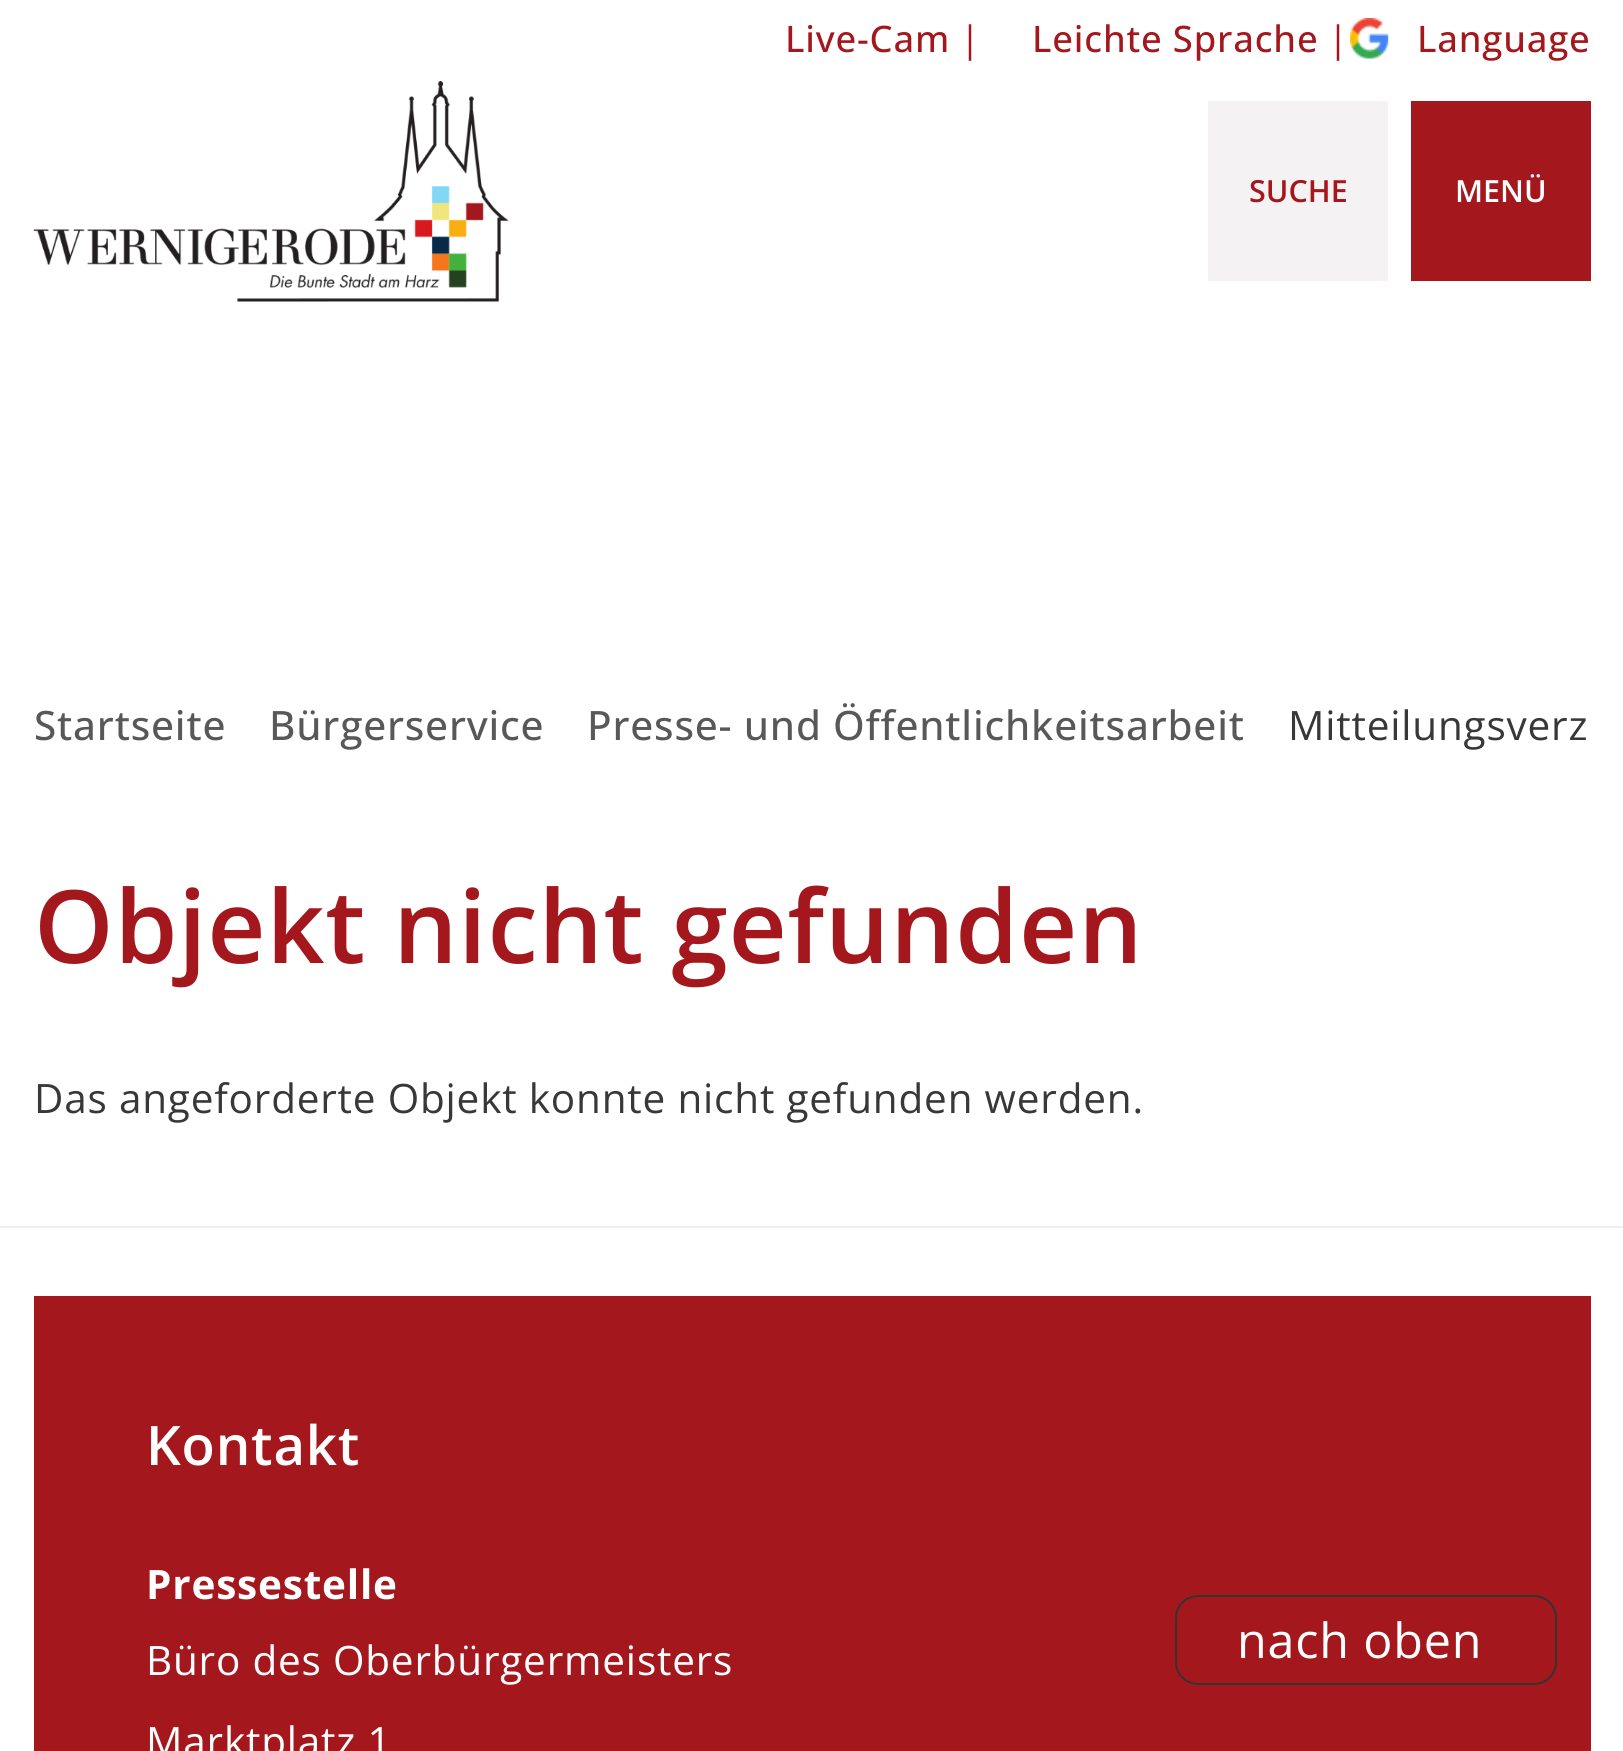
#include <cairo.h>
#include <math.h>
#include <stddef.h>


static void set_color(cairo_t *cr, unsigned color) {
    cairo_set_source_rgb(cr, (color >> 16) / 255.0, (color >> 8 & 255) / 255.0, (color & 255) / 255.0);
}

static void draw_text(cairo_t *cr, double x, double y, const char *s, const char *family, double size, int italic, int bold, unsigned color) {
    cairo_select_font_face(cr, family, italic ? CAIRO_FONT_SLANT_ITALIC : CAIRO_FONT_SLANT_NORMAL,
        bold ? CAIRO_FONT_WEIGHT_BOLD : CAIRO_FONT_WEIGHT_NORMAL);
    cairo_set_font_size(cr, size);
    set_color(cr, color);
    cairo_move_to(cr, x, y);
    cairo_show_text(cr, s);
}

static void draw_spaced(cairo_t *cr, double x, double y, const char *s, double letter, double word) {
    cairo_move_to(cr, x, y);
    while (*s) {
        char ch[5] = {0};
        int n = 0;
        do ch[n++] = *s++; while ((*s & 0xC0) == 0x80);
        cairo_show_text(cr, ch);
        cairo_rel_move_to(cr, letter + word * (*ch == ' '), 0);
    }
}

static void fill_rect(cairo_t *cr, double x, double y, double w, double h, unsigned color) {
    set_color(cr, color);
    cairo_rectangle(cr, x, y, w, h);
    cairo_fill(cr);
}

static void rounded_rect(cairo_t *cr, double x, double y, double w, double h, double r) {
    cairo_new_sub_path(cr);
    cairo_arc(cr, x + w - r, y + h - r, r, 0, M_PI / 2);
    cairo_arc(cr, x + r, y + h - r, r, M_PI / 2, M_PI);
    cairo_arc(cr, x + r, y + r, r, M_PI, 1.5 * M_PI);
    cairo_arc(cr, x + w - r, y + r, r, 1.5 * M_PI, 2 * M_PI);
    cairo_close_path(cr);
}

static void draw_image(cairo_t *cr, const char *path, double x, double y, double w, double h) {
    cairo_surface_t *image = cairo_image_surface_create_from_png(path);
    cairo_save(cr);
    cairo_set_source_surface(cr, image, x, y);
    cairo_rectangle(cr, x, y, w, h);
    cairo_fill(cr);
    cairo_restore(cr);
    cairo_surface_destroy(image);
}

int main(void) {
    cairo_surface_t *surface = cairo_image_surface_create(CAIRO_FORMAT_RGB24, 1623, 1751);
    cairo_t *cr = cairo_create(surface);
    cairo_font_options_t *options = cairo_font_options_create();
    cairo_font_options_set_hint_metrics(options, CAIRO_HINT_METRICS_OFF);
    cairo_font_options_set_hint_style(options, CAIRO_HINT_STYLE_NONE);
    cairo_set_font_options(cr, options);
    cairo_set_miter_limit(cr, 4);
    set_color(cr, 0xFFFFFF);
    cairo_paint(cr);
    cairo_select_font_face(cr, "Open Sans Medium", CAIRO_FONT_SLANT_NORMAL, CAIRO_FONT_WEIGHT_NORMAL);
    cairo_set_font_size(cr, 36.5);
    set_color(cr, 0xA4181D);
    draw_spaced(cr, 785, 52, "Live-Cam", 0.8, 0);
    cairo_select_font_face(cr, "Open Sans", CAIRO_FONT_SLANT_NORMAL, CAIRO_FONT_WEIGHT_NORMAL);
    draw_spaced(cr, 960, 52, "|", 0.8, 0);
    cairo_select_font_face(cr, "Open Sans Medium", CAIRO_FONT_SLANT_NORMAL, CAIRO_FONT_WEIGHT_NORMAL);
    draw_spaced(cr, 1032, 52, "Leichte Sprache", 0.8, 0);
    cairo_select_font_face(cr, "Open Sans", CAIRO_FONT_SLANT_NORMAL, CAIRO_FONT_WEIGHT_NORMAL);
    draw_spaced(cr, 1328, 52, "|", 0.8, 0);
    draw_image(cr, "assets/img1.png", 1350, 18, 39, 41);
    cairo_select_font_face(cr, "Open Sans Medium", CAIRO_FONT_SLANT_NORMAL, CAIRO_FONT_WEIGHT_NORMAL);
    draw_spaced(cr, 1417, 52, "Language", 0.8, 0);
    draw_image(cr, "assets/img2.png", 33, 81, 476, 221);
    fill_rect(cr, 1208, 101, 180, 180, 0xF5F2F4);
    draw_text(cr, 1249, 202, "SUCHE", "Open Sans SemiBold", 30.5, 0, 0, 0xA4181D);
    fill_rect(cr, 1411, 101, 180, 180, 0xA4181D);
    draw_text(cr, 1455, 202, "MENÜ", "Open Sans SemiBold", 30.5, 0, 0, 0xFFFFFF);
    cairo_select_font_face(cr, "Open Sans Medium", CAIRO_FONT_SLANT_NORMAL, CAIRO_FONT_WEIGHT_NORMAL);
    cairo_set_font_size(cr, 40.5);
    set_color(cr, 0x585858);
    draw_spaced(cr, 34, 740, "Startseite", 0.8, 0);
    draw_spaced(cr, 269, 740, "Bürgerservice", 0.8, 0);
    draw_spaced(cr, 587, 740, "Presse- und Öffentlichkeitsarbeit", 0.8, 0);
    cairo_select_font_face(cr, "Open Sans", CAIRO_FONT_SLANT_NORMAL, CAIRO_FONT_WEIGHT_NORMAL);
    set_color(cr, 0x383838);
    draw_spaced(cr, 1288, 740, "Mitteilungsverz", 0.8, 0);
    cairo_select_font_face(cr, "Open Sans SemiBold", CAIRO_FONT_SLANT_NORMAL, CAIRO_FONT_WEIGHT_NORMAL);
    cairo_set_font_size(cr, 101.25);
    set_color(cr, 0xA4181D);
    draw_spaced(cr, 34, 963, "Objekt nicht gefunden", 0.8, 0);
    cairo_select_font_face(cr, "Open Sans", CAIRO_FONT_SLANT_NORMAL, CAIRO_FONT_WEIGHT_NORMAL);
    cairo_set_font_size(cr, 40.5);
    set_color(cr, 0x383838);
    draw_spaced(cr, 34, 1113, "Das angeforderte Objekt konnte nicht gefunden werden.", 0.8, 0);
    fill_rect(cr, 0, 1226, 1623, 2, 0xF0F0F0);
    fill_rect(cr, 34, 1296, 1557, 455, 0xA4181D);
    cairo_select_font_face(cr, "Open Sans SemiBold", CAIRO_FONT_SLANT_NORMAL, CAIRO_FONT_WEIGHT_NORMAL);
    cairo_set_font_size(cr, 54.5);
    set_color(cr, 0xFFFFFF);
    draw_spaced(cr, 146, 1465, "Kontakt", 0.8, 0);
    cairo_select_font_face(cr, "Open Sans", CAIRO_FONT_SLANT_NORMAL, CAIRO_FONT_WEIGHT_BOLD);
    cairo_set_font_size(cr, 40.5);
    draw_spaced(cr, 146, 1599, "Pressestelle", 0.8, 0);
    cairo_select_font_face(cr, "Open Sans", CAIRO_FONT_SLANT_NORMAL, CAIRO_FONT_WEIGHT_NORMAL);
    draw_spaced(cr, 146, 1675, "Büro des Oberbürgermeisters", 0.8, 0);
    draw_spaced(cr, 146, 1756, "Marktplatz 1", 0.8, 0);
    rounded_rect(cr, 1176, 1596, 380, 88, 22);
    set_color(cr, 0x333333);
    cairo_stroke(cr);
    cairo_set_font_size(cr, 48.5);
    set_color(cr, 0xFFFFFF);
    draw_spaced(cr, 1237, 1658, "nach oben", 0.8, 0);
    cairo_surface_write_to_png(surface, "output.png");
    cairo_font_options_destroy(options);
    cairo_destroy(cr);
    cairo_surface_destroy(surface);
    return 0;
}
